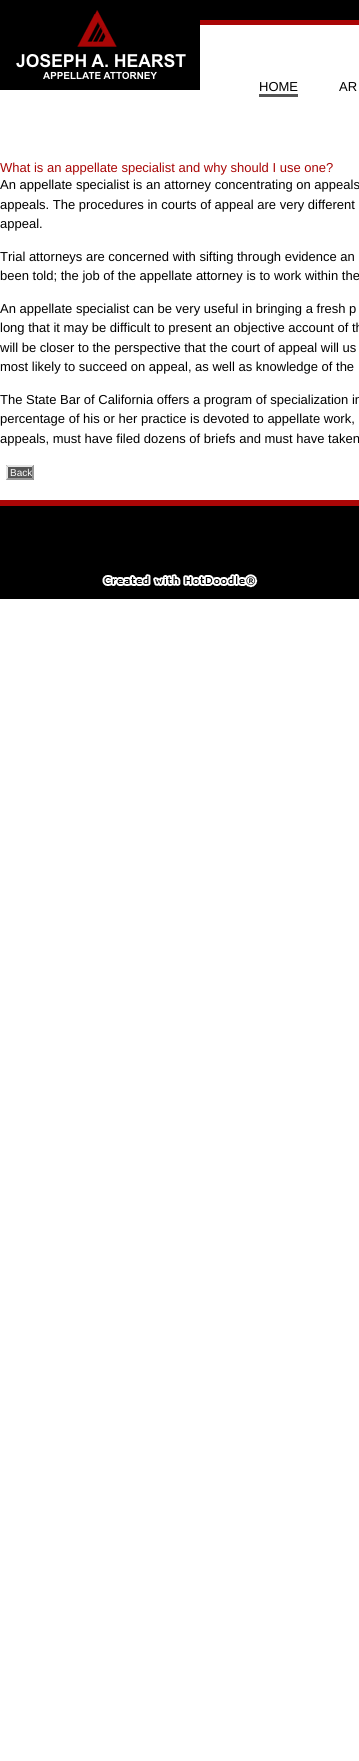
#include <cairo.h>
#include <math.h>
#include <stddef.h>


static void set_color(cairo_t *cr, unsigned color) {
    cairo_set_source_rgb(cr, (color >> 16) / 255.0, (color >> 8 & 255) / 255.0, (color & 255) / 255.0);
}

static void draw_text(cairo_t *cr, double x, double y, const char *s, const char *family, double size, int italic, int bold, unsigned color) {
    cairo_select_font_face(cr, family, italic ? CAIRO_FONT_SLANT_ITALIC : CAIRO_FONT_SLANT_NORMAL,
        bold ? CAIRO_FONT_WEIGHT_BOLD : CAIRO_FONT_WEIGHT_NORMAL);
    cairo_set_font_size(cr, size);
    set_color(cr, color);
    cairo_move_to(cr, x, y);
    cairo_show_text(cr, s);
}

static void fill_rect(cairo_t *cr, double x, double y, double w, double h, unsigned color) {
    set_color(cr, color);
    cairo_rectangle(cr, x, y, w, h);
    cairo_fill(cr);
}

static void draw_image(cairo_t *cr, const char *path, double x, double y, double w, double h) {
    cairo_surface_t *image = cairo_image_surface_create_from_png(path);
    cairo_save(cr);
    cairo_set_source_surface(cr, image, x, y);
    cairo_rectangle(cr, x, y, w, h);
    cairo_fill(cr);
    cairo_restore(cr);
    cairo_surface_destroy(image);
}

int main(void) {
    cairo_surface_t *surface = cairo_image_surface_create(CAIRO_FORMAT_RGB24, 359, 1761);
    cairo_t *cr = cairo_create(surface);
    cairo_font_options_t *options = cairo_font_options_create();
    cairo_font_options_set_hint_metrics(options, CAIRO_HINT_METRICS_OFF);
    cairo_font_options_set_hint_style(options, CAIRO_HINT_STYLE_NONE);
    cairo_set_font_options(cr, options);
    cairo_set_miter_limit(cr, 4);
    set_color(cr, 0xFFFFFF);
    cairo_paint(cr);
    draw_image(cr, "assets/img1.png", 0, 0, 359, 25);
    draw_image(cr, "assets/img2.png", 0, 10, 200, 80);
    draw_text(cr, 259, 91, "HOME", "Liberation Sans", 13, 0, 0, 0x000000);
    fill_rect(cr, 259, 94, 39, 3, 0x555555);
    draw_text(cr, 339, 91, "AR", "Liberation Sans", 13, 0, 0, 0x000000);
    draw_text(cr, 0, 172, "What is an appellate specialist and why should I use one?", "Liberation Sans", 13, 0, 0, 0xA90606);
    draw_text(cr, 0, 189, "An appellate specialist is an attorney concentrating on appeals", "Liberation Sans", 13, 0, 0, 0x000000);
    draw_text(cr, 0, 209, "appeals. The procedures in courts of appeal are very different", "Liberation Sans", 13, 0, 0, 0x000000);
    draw_text(cr, 0, 228, "appeal.", "Liberation Sans", 13, 0, 0, 0x000000);
    draw_text(cr, 0, 261, "Trial attorneys are concerned with sifting through evidence an", "Liberation Sans", 13, 0, 0, 0x000000);
    draw_text(cr, 0, 280, "been told; the job of the appellate attorney is to work within the", "Liberation Sans", 13, 0, 0, 0x000000);
    draw_text(cr, 0, 313, "An appellate specialist can be very useful in bringing a fresh p", "Liberation Sans", 13, 0, 0, 0x000000);
    draw_text(cr, 0, 332, "long that it may be difficult to present an objective account of th", "Liberation Sans", 13, 0, 0, 0x000000);
    draw_text(cr, 0, 352, "will be closer to the perspective that the court of appeal will us", "Liberation Sans", 13, 0, 0, 0x000000);
    draw_text(cr, 0, 371, "most likely to succeed on appeal, as well as knowledge of the", "Liberation Sans", 13, 0, 0, 0x000000);
    draw_text(cr, 0, 404, "The State Bar of California offers a program of specialization in", "Liberation Sans", 13, 0, 0, 0x000000);
    draw_text(cr, 0, 423, "percentage of his or her practice is devoted to appellate work,", "Liberation Sans", 13, 0, 0, 0x000000);
    draw_text(cr, 0, 443, "appeals, must have filed dozens of briefs and must have taken", "Liberation Sans", 13, 0, 0, 0x000000);
    fill_rect(cr, 6, 465, 28, 15, 0x555555);
    set_color(cr, 0xE6E6E6);
    cairo_new_path(cr);
    cairo_move_to(cr, 6, 465);
    cairo_line_to(cr, 34, 465);
    cairo_line_to(cr, 32, 467);
    cairo_line_to(cr, 8, 467);
    cairo_close_path(cr);
    cairo_fill(cr);
    set_color(cr, 0x999999);
    cairo_new_path(cr);
    cairo_move_to(cr, 34, 465);
    cairo_line_to(cr, 34, 480);
    cairo_line_to(cr, 32, 478);
    cairo_line_to(cr, 32, 467);
    cairo_close_path(cr);
    cairo_fill(cr);
    cairo_new_path(cr);
    cairo_move_to(cr, 34, 480);
    cairo_line_to(cr, 6, 480);
    cairo_line_to(cr, 8, 478);
    cairo_line_to(cr, 32, 478);
    cairo_close_path(cr);
    cairo_fill(cr);
    set_color(cr, 0xE6E6E6);
    cairo_new_path(cr);
    cairo_move_to(cr, 6, 480);
    cairo_line_to(cr, 6, 465);
    cairo_line_to(cr, 8, 467);
    cairo_line_to(cr, 8, 478);
    cairo_close_path(cr);
    cairo_fill(cr);
    draw_text(cr, 10, 476, "Back", "Liberation Sans", 10, 0, 0, 0xFFFFFF);
    fill_rect(cr, 0, 506, 359, 93, 0x000000);
    fill_rect(cr, 0, 500, 359, 6, 0xAA0606);
    draw_image(cr, "assets/img3.png", 102, 574, 156, 14);
    cairo_surface_write_to_png(surface, "output.png");
    cairo_font_options_destroy(options);
    cairo_destroy(cr);
    cairo_surface_destroy(surface);
    return 0;
}
